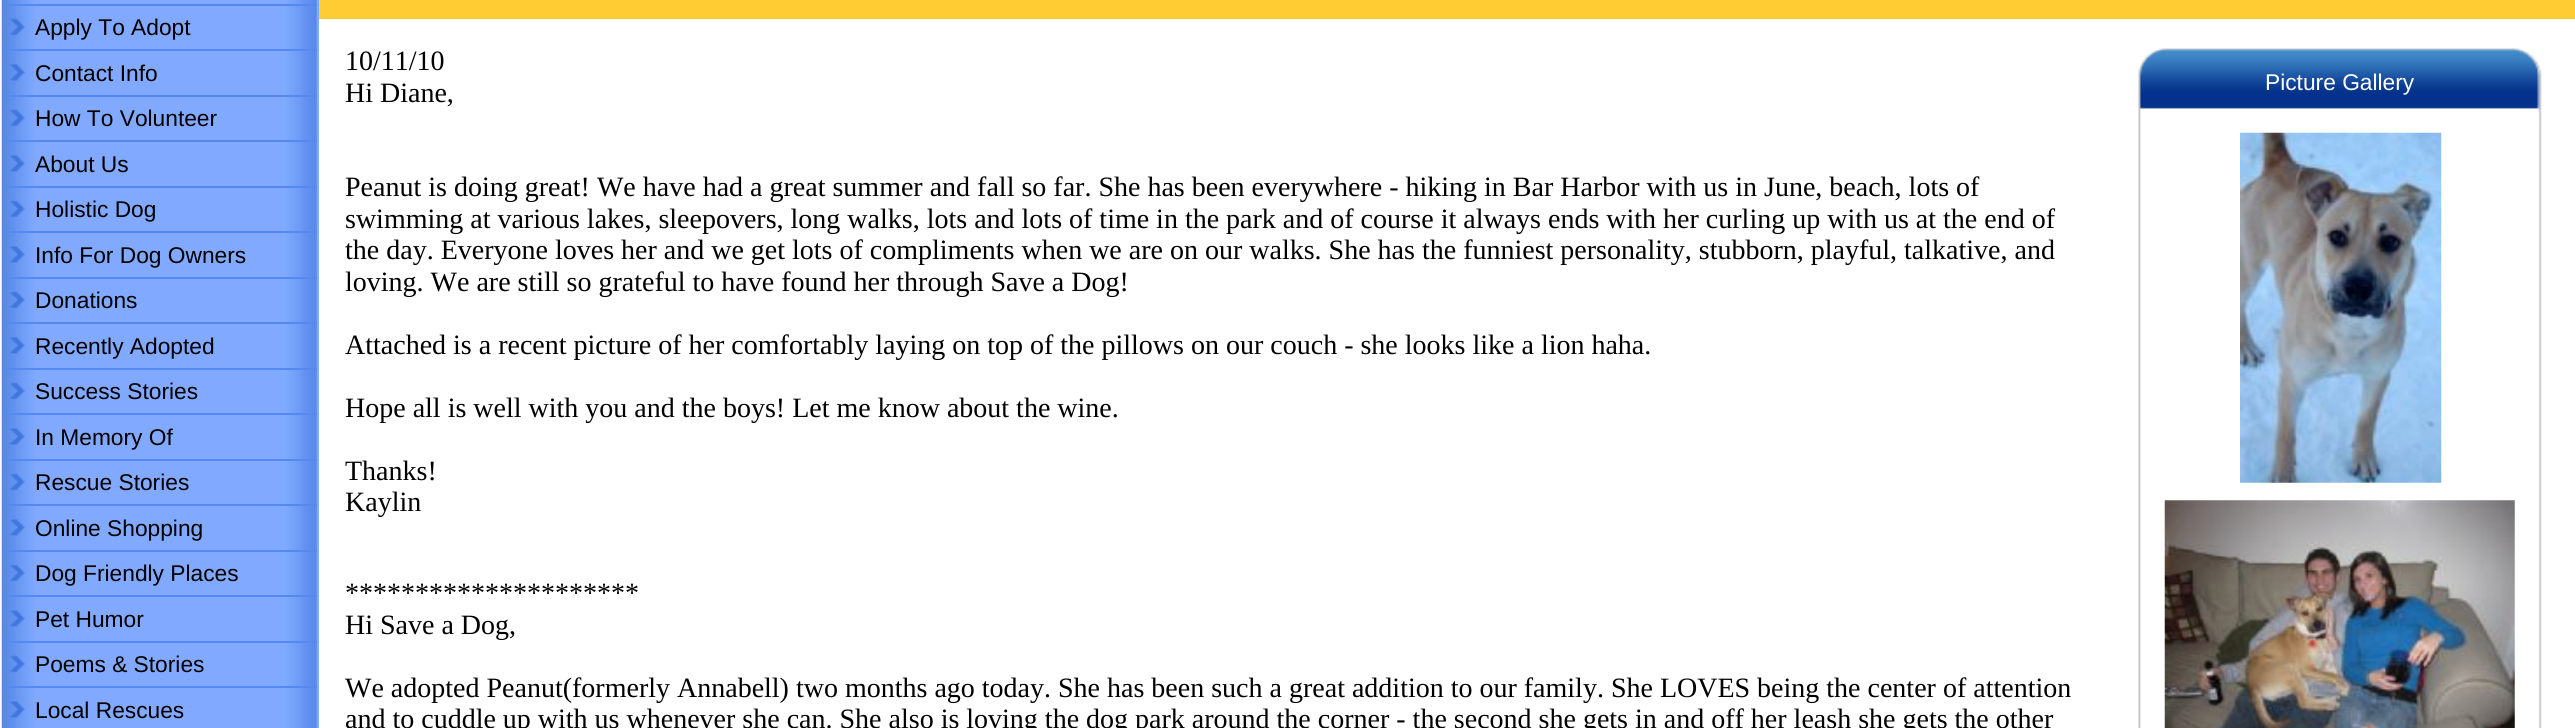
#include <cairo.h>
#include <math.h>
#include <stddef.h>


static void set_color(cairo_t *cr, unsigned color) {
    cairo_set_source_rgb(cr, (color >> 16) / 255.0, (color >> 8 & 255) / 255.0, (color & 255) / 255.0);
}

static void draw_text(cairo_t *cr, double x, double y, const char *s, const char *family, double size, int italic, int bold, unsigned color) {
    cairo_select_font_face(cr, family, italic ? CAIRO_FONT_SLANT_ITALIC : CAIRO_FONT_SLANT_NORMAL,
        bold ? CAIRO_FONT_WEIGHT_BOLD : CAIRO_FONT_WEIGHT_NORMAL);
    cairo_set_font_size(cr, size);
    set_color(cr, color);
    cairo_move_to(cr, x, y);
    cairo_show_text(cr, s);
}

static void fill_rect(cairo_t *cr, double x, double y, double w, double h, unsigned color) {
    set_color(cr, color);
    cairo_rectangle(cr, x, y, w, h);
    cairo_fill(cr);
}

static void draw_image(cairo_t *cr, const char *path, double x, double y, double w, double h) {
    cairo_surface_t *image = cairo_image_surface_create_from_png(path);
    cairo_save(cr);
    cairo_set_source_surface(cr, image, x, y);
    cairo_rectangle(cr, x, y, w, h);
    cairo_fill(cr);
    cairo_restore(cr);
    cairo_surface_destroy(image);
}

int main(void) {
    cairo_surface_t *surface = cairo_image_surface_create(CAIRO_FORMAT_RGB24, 2575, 728);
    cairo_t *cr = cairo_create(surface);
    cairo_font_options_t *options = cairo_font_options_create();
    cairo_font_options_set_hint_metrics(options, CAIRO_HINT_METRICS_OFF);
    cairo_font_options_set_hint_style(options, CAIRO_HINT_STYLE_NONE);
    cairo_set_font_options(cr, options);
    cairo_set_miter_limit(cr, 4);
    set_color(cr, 0xFFFFFF);
    cairo_paint(cr);
    fill_rect(cr, 316, 0, 3, 728, 0x80AAFF);
    draw_image(cr, "assets/img1.png", 1, 0, 316, 728);
    fill_rect(cr, 2, 4, 315, 2, 0x5489EF);
    draw_image(cr, "assets/img2.png", 10, 18, 15, 18);
    fill_rect(cr, 2, 49, 315, 2, 0x5489EF);
    draw_text(cr, 35, 35, "Apply To Adopt", "Liberation Sans", 22.75, 0, 0, 0x000000);
    draw_image(cr, "assets/img3.png", 10, 64, 15, 17);
    fill_rect(cr, 2, 95, 315, 2, 0x5489EF);
    draw_text(cr, 35, 81, "Contact Info", "Liberation Sans", 22.75, 0, 0, 0x000000);
    draw_image(cr, "assets/img2.png", 10, 109, 15, 18);
    fill_rect(cr, 2, 140, 315, 2, 0x5489EF);
    draw_text(cr, 35, 126, "How To Volunteer", "Liberation Sans", 22.75, 0, 0, 0x000000);
    draw_image(cr, "assets/img3.png", 10, 155, 15, 17);
    fill_rect(cr, 2, 186, 315, 2, 0x5489EF);
    draw_text(cr, 35, 172, "About Us", "Liberation Sans", 22.75, 0, 0, 0x000000);
    draw_image(cr, "assets/img2.png", 10, 200, 15, 18);
    fill_rect(cr, 2, 231, 315, 2, 0x5489EF);
    draw_text(cr, 35, 217, "Holistic Dog", "Liberation Sans", 22.75, 0, 0, 0x000000);
    draw_image(cr, "assets/img3.png", 10, 246, 15, 17);
    fill_rect(cr, 2, 277, 315, 2, 0x5489EF);
    draw_text(cr, 35, 263, "Info For Dog Owners", "Liberation Sans", 22.75, 0, 0, 0x000000);
    draw_image(cr, "assets/img2.png", 10, 291, 15, 18);
    fill_rect(cr, 2, 322, 315, 2, 0x5489EF);
    draw_text(cr, 35, 308, "Donations", "Liberation Sans", 22.75, 0, 0, 0x000000);
    draw_image(cr, "assets/img3.png", 10, 337, 15, 17);
    fill_rect(cr, 2, 368, 315, 2, 0x5489EF);
    draw_text(cr, 35, 354, "Recently Adopted", "Liberation Sans", 22.75, 0, 0, 0x000000);
    draw_image(cr, "assets/img2.png", 10, 382, 15, 18);
    fill_rect(cr, 2, 413, 315, 2, 0x5489EF);
    draw_text(cr, 35, 399, "Success Stories", "Liberation Sans", 22.75, 0, 0, 0x000000);
    draw_image(cr, "assets/img3.png", 10, 428, 15, 17);
    fill_rect(cr, 2, 459, 315, 2, 0x5489EF);
    draw_text(cr, 35, 445, "In Memory Of", "Liberation Sans", 22.75, 0, 0, 0x000000);
    draw_image(cr, "assets/img2.png", 10, 473, 15, 18);
    fill_rect(cr, 2, 504, 315, 2, 0x5489EF);
    draw_text(cr, 35, 490, "Rescue Stories", "Liberation Sans", 22.75, 0, 0, 0x000000);
    draw_image(cr, "assets/img3.png", 10, 519, 15, 17);
    fill_rect(cr, 2, 550, 315, 2, 0x5489EF);
    draw_text(cr, 35, 536, "Online Shopping", "Liberation Sans", 22.75, 0, 0, 0x000000);
    draw_image(cr, "assets/img2.png", 10, 564, 15, 18);
    fill_rect(cr, 2, 595, 315, 2, 0x5489EF);
    draw_text(cr, 35, 581, "Dog Friendly Places", "Liberation Sans", 22.75, 0, 0, 0x000000);
    draw_image(cr, "assets/img3.png", 10, 610, 15, 17);
    fill_rect(cr, 2, 641, 315, 2, 0x5489EF);
    draw_text(cr, 35, 627, "Pet Humor", "Liberation Sans", 22.75, 0, 0, 0x000000);
    draw_image(cr, "assets/img2.png", 10, 655, 15, 18);
    fill_rect(cr, 2, 686, 315, 2, 0x5489EF);
    draw_text(cr, 35, 672, "Poems & Stories", "Liberation Sans", 22.75, 0, 0, 0x000000);
    draw_image(cr, "assets/img3.png", 10, 701, 15, 17);
    draw_text(cr, 35, 718, "Local Rescues", "Liberation Sans", 22.75, 0, 0, 0x000000);
    fill_rect(cr, 319, 0, 2256, 19, 0xFFCC33);
    draw_text(cr, 345, 70, "10/11/10", "Liberation Serif", 28, 0, 0, 0x000000);
    draw_text(cr, 345, 102, "Hi Diane,", "Liberation Serif", 28, 0, 0, 0x000000);
    draw_text(cr, 345, 196, "Peanut is doing great! We have had a great summer and fall so far. She has been everywhere - hiking in Bar Harbor with us in June, beach, lots of", "Liberation Serif", 28, 0, 0, 0x000000);
    draw_text(cr, 345, 228, "swimming at various lakes, sleepovers, long walks, lots and lots of time in the park and of course it always ends with her curling up with us at the end of", "Liberation Serif", 28, 0, 0, 0x000000);
    draw_text(cr, 345, 259, "the day. Everyone loves her and we get lots of compliments when we are on our walks. She has the funniest personality, stubborn, playful, talkative, and", "Liberation Serif", 28, 0, 0, 0x000000);
    draw_text(cr, 345, 291, "loving. We are still so grateful to have found her through Save a Dog!", "Liberation Serif", 28, 0, 0, 0x000000);
    draw_text(cr, 345, 354, "Attached is a recent picture of her comfortably laying on top of the pillows on our couch - she looks like a lion haha.", "Liberation Serif", 28, 0, 0, 0x000000);
    draw_text(cr, 345, 417, "Hope all is well with you and the boys! Let me know about the wine.", "Liberation Serif", 28, 0, 0, 0x000000);
    draw_text(cr, 345, 480, "Thanks!", "Liberation Serif", 28, 0, 0, 0x000000);
    draw_text(cr, 345, 511, "Kaylin", "Liberation Serif", 28, 0, 0, 0x000000);
    draw_text(cr, 345, 602, "*********************", "Liberation Serif", 28, 0, 0, 0x000000);
    draw_text(cr, 345, 634, "Hi Save a Dog,", "Liberation Serif", 28, 0, 0, 0x000000);
    draw_text(cr, 345, 697, "We adopted Peanut(formerly Annabell) two months ago today. She has been such a great addition to our family. She LOVES being the center of attention", "Liberation Serif", 28, 0, 0, 0x000000);
    draw_text(cr, 345, 728, "and to cuddle up with us whenever she can. She also is loving the dog park around the corner - the second she gets in and off her leash she gets the other", "Liberation Serif", 28, 0, 0, 0x000000);
    draw_image(cr, "assets/img4.png", 2138, 48, 404, 76);
    draw_text(cr, 2265, 90, "Picture Gallery", "Liberation Sans", 22.75, 0, 0, 0xFFFFFF);
    draw_image(cr, "assets/img5.png", 2138, 124, 404, 604);
    draw_image(cr, "assets/img6.png", 2240, 132, 202, 351);
    draw_image(cr, "assets/img7.png", 2164, 500, 351, 228);
    cairo_surface_write_to_png(surface, "output.png");
    cairo_font_options_destroy(options);
    cairo_destroy(cr);
    cairo_surface_destroy(surface);
    return 0;
}
